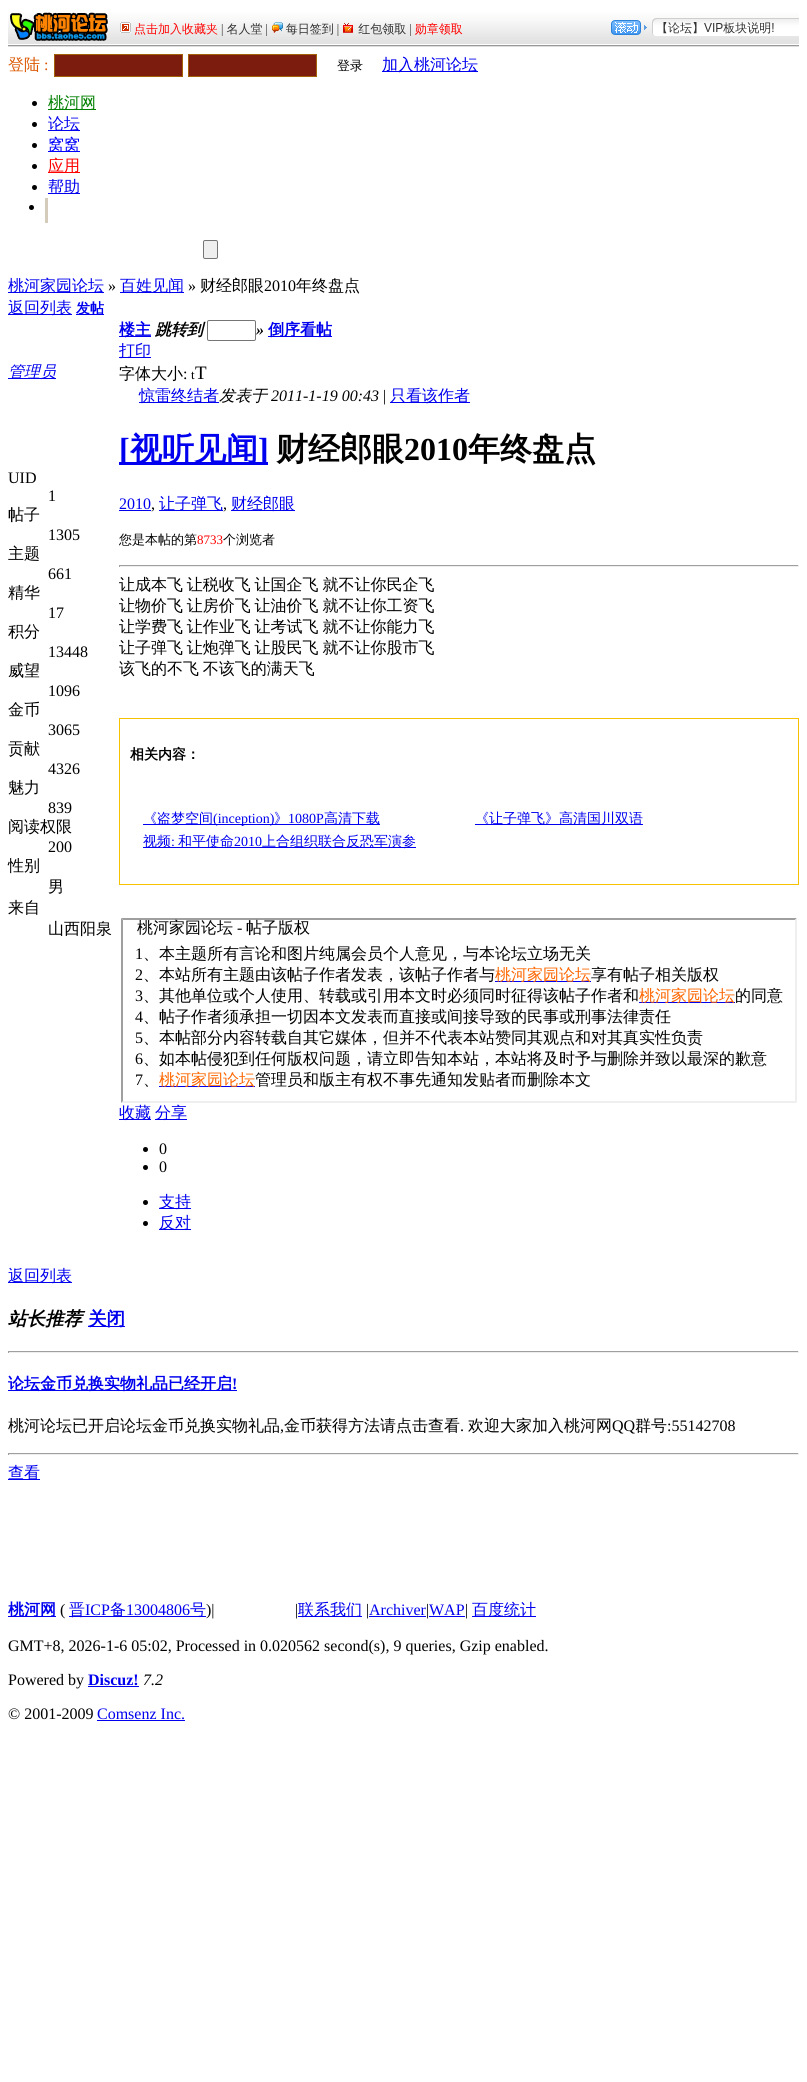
#include <cairo.h>
#include <math.h>
#include <stddef.h>


static void set_color(cairo_t *cr, unsigned color) {
    cairo_set_source_rgb(cr, (color >> 16) / 255.0, (color >> 8 & 255) / 255.0, (color & 255) / 255.0);
}

static void draw_text(cairo_t *cr, double x, double y, const char *s, const char *family, double size, int italic, int bold, unsigned color) {
    cairo_select_font_face(cr, family, italic ? CAIRO_FONT_SLANT_ITALIC : CAIRO_FONT_SLANT_NORMAL,
        bold ? CAIRO_FONT_WEIGHT_BOLD : CAIRO_FONT_WEIGHT_NORMAL);
    cairo_set_font_size(cr, size);
    set_color(cr, color);
    cairo_move_to(cr, x, y);
    cairo_show_text(cr, s);
}

static void draw_spaced(cairo_t *cr, double x, double y, const char *s, double letter, double word) {
    cairo_move_to(cr, x, y);
    while (*s) {
        char ch[5] = {0};
        int n = 0;
        do ch[n++] = *s++; while ((*s & 0xC0) == 0x80);
        cairo_show_text(cr, ch);
        cairo_rel_move_to(cr, letter + word * (*ch == ' '), 0);
    }
}

static void fill_rect(cairo_t *cr, double x, double y, double w, double h, unsigned color) {
    set_color(cr, color);
    cairo_rectangle(cr, x, y, w, h);
    cairo_fill(cr);
}

static void rounded_rect(cairo_t *cr, double x, double y, double w, double h, double r) {
    cairo_new_sub_path(cr);
    cairo_arc(cr, x + w - r, y + h - r, r, 0, M_PI / 2);
    cairo_arc(cr, x + r, y + h - r, r, M_PI / 2, M_PI);
    cairo_arc(cr, x + r, y + r, r, M_PI, 1.5 * M_PI);
    cairo_arc(cr, x + w - r, y + r, r, 1.5 * M_PI, 2 * M_PI);
    cairo_close_path(cr);
}

static void draw_image(cairo_t *cr, const char *path, double x, double y, double w, double h) {
    cairo_surface_t *image = cairo_image_surface_create_from_png(path);
    cairo_save(cr);
    cairo_set_source_surface(cr, image, x, y);
    cairo_rectangle(cr, x, y, w, h);
    cairo_fill(cr);
    cairo_restore(cr);
    cairo_surface_destroy(image);
}

int main(void) {
    cairo_surface_t *surface = cairo_image_surface_create(CAIRO_FORMAT_RGB24, 807, 2082);
    cairo_t *cr = cairo_create(surface);
    cairo_font_options_t *options = cairo_font_options_create();
    cairo_font_options_set_hint_metrics(options, CAIRO_HINT_METRICS_OFF);
    cairo_font_options_set_hint_style(options, CAIRO_HINT_STYLE_NONE);
    cairo_set_font_options(cr, options);
    cairo_set_miter_limit(cr, 4);
    set_color(cr, 0xFFFFFF);
    cairo_paint(cr);
    draw_image(cr, "assets/img1.png", 8, 12, 791, 35);
    draw_text(cr, 8, 70, "登陆", "WenQuanYi Zen Hei Medium", 16, 0, 0, 0xDB5700);
    draw_text(cr, 44, 70, ":", "Liberation Serif", 16, 0, 0, 0xDB5700);
    set_color(cr, 0x7C1C0E);
    cairo_rectangle(cr, 54.5, 54.5, 128, 22);
    cairo_fill_preserve(cr);
    set_color(cr, 0xA36108);
    cairo_set_line_width(cr, 1);
    cairo_stroke(cr);
    set_color(cr, 0x7C1C0E);
    cairo_rectangle(cr, 188.5, 54.5, 128, 22);
    cairo_fill_preserve(cr);
    set_color(cr, 0xA36108);
    cairo_stroke(cr);
    draw_text(cr, 337, 70, "登录", "WenQuanYi Zen Hei Medium", 13, 0, 0, 0x000000);
    fill_rect(cr, 382, 71, 96, 1, 0x0000EE);
    draw_text(cr, 382, 70, "加入桃河论坛", "WenQuanYi Zen Hei Medium", 16, 0, 0, 0x0000EE);
    set_color(cr, 0x000000);
    cairo_new_path(cr);
    cairo_arc(cr, 34.5, 103.5, 2.5, 0, 2 * M_PI);
    cairo_fill(cr);
    fill_rect(cr, 48, 109, 48, 1, 0x008000);
    draw_text(cr, 48, 108, "桃河网", "WenQuanYi Zen Hei Medium", 16, 0, 0, 0x008000);
    set_color(cr, 0x000000);
    cairo_new_path(cr);
    cairo_arc(cr, 34.5, 124.5, 2.5, 0, 2 * M_PI);
    cairo_fill(cr);
    fill_rect(cr, 48, 130, 32, 1, 0x0000EE);
    draw_text(cr, 48, 129, "论坛", "WenQuanYi Zen Hei Medium", 16, 0, 0, 0x0000EE);
    set_color(cr, 0x000000);
    cairo_new_path(cr);
    cairo_arc(cr, 34.5, 145.5, 2.5, 0, 2 * M_PI);
    cairo_fill(cr);
    fill_rect(cr, 48, 151, 32, 1, 0x0000FF);
    draw_text(cr, 48, 150, "窝窝", "WenQuanYi Zen Hei Medium", 16, 0, 0, 0x0000FF);
    set_color(cr, 0x000000);
    cairo_new_path(cr);
    cairo_arc(cr, 34.5, 166.5, 2.5, 0, 2 * M_PI);
    cairo_fill(cr);
    fill_rect(cr, 48, 172, 32, 1, 0xFF0000);
    draw_text(cr, 48, 171, "应用", "WenQuanYi Zen Hei Medium", 16, 0, 0, 0xFF0000);
    set_color(cr, 0x000000);
    cairo_new_path(cr);
    cairo_arc(cr, 34.5, 187.5, 2.5, 0, 2 * M_PI);
    cairo_fill(cr);
    fill_rect(cr, 48, 193, 32, 1, 0x0000EE);
    draw_text(cr, 48, 192, "帮助", "WenQuanYi Zen Hei Medium", 16, 0, 0, 0x0000EE);
    fill_rect(cr, 45, 198, 3, 25, 0xD4CBBA);
    set_color(cr, 0x000000);
    cairo_new_path(cr);
    cairo_arc(cr, 31.5, 207.5, 2.5, 0, 2 * M_PI);
    cairo_fill(cr);
    set_color(cr, 0xEFEFEF);
    rounded_rect(cr, 203.5, 240.5, 14, 18, 1.5);
    cairo_fill_preserve(cr);
    set_color(cr, 0x767676);
    cairo_stroke(cr);
    fill_rect(cr, 8, 292, 96, 1, 0x0000EE);
    draw_text(cr, 8, 291, "桃河家园论坛", "WenQuanYi Zen Hei Medium", 16, 0, 0, 0x0000EE);
    draw_text(cr, 108, 291, "»", "Liberation Serif", 16, 0, 0, 0x000000);
    fill_rect(cr, 120, 292, 64, 1, 0x0000EE);
    draw_text(cr, 120, 291, "百姓见闻", "WenQuanYi Zen Hei Medium", 16, 0, 0, 0x0000EE);
    draw_text(cr, 188, 291, "»", "Liberation Serif", 16, 0, 0, 0x000000);
    draw_text(cr, 200, 291, "财经郎眼", "WenQuanYi Zen Hei Medium", 16, 0, 0, 0x000000);
    draw_text(cr, 264, 291, "2010", "Liberation Serif", 16, 0, 0, 0x000000);
    draw_text(cr, 296, 291, "年终盘点", "WenQuanYi Zen Hei Medium", 16, 0, 0, 0x000000);
    fill_rect(cr, 8, 314, 64, 1, 0x0000EE);
    draw_text(cr, 8, 313, "返回列表", "WenQuanYi Zen Hei Medium", 16, 0, 0, 0x0000EE);
    fill_rect(cr, 76, 314, 28, 1, 0x0000EE);
    draw_text(cr, 76, 313, "发帖", "WenQuanYi Zen Hei", 14, 0, 1, 0x0000EE);
    fill_rect(cr, 8, 378, 48, 1, 0x0000EE);
    draw_text(cr, 8, 377, "管理员", "WenQuanYi Zen Hei Medium", 16, 1, 0, 0x0000EE);
    draw_text(cr, 8, 483, "UID", "Liberation Serif", 16, 0, 0, 0x000000);
    draw_text(cr, 48, 501, "1", "Liberation Serif", 16, 0, 0, 0x000000);
    draw_text(cr, 8, 520, "帖子", "WenQuanYi Zen Hei Medium", 16, 0, 0, 0x000000);
    draw_text(cr, 48, 540, "1305", "Liberation Serif", 16, 0, 0, 0x000000);
    draw_text(cr, 8, 559, "主题", "WenQuanYi Zen Hei Medium", 16, 0, 0, 0x000000);
    draw_text(cr, 48, 579, "661", "Liberation Serif", 16, 0, 0, 0x000000);
    draw_text(cr, 8, 598, "精华", "WenQuanYi Zen Hei Medium", 16, 0, 0, 0x000000);
    draw_text(cr, 48, 618, "17", "Liberation Serif", 16, 0, 0, 0x000000);
    draw_text(cr, 8, 637, "积分", "WenQuanYi Zen Hei Medium", 16, 0, 0, 0x000000);
    draw_text(cr, 48, 657, "13448", "Liberation Serif", 16, 0, 0, 0x000000);
    draw_text(cr, 8, 676, "威望", "WenQuanYi Zen Hei Medium", 16, 0, 0, 0x000000);
    draw_text(cr, 48, 696, "1096", "Liberation Serif", 16, 0, 0, 0x000000);
    draw_text(cr, 8, 715, "金币", "WenQuanYi Zen Hei Medium", 16, 0, 0, 0x000000);
    draw_text(cr, 48, 735, "3065", "Liberation Serif", 16, 0, 0, 0x000000);
    draw_text(cr, 8, 754, "贡献", "WenQuanYi Zen Hei Medium", 16, 0, 0, 0x000000);
    draw_text(cr, 48, 774, "4326", "Liberation Serif", 16, 0, 0, 0x000000);
    draw_text(cr, 8, 793, "魅力", "WenQuanYi Zen Hei Medium", 16, 0, 0, 0x000000);
    draw_text(cr, 48, 813, "839", "Liberation Serif", 16, 0, 0, 0x000000);
    draw_text(cr, 8, 832, "阅读权限", "WenQuanYi Zen Hei Medium", 16, 0, 0, 0x000000);
    draw_text(cr, 48, 852, "200", "Liberation Serif", 16, 0, 0, 0x000000);
    draw_text(cr, 8, 871, "性别", "WenQuanYi Zen Hei Medium", 16, 0, 0, 0x000000);
    draw_text(cr, 48, 892, "男", "WenQuanYi Zen Hei Medium", 16, 0, 0, 0x000000);
    draw_text(cr, 8, 913, "来自", "WenQuanYi Zen Hei Medium", 16, 0, 0, 0x000000);
    draw_text(cr, 48, 934, "山西阳泉", "WenQuanYi Zen Hei Medium", 16, 0, 0, 0x000000);
    fill_rect(cr, 119, 336, 32, 1, 0x0000EE);
    draw_text(cr, 119, 335, "楼主", "WenQuanYi Zen Hei", 16, 0, 1, 0x0000EE);
    draw_text(cr, 155, 335, "跳转到", "WenQuanYi Zen Hei", 16, 1, 1, 0x000000);
    rounded_rect(cr, 207.5, 320.5, 48, 20, 1.5);
    set_color(cr, 0x767676);
    cairo_stroke(cr);
    draw_text(cr, 256, 335, "»", "Liberation Serif", 16, 1, 1, 0x000000);
    fill_rect(cr, 268, 336, 64, 1, 0x0000EE);
    draw_text(cr, 268, 335, "倒序看帖", "WenQuanYi Zen Hei", 16, 0, 1, 0x0000EE);
    fill_rect(cr, 119, 357, 32, 1, 0x0000EE);
    draw_text(cr, 119, 356, "打印", "WenQuanYi Zen Hei Medium", 16, 0, 0, 0x0000EE);
    draw_text(cr, 119, 379, "字体大小", "WenQuanYi Zen Hei Medium", 16, 0, 0, 0x000000);
    draw_text(cr, 183, 379, ":", "Liberation Serif", 16, 0, 0, 0x000000);
    draw_text(cr, 191, 379, "t", "Liberation Serif", 13, 0, 0, 0x000000);
    draw_text(cr, 195, 379, "T", "Liberation Serif", 19, 0, 0, 0x000000);
    fill_rect(cr, 139, 402, 80, 1, 0x0000EE);
    draw_text(cr, 139, 401, "惊雷终结者", "WenQuanYi Zen Hei Medium", 16, 0, 0, 0x0000EE);
    draw_text(cr, 219, 401, "发表于", "WenQuanYi Zen Hei Medium", 16, 1, 0, 0x000000);
    draw_text(cr, 271, 401, "2011-1-19 00:43", "Liberation Serif", 16, 1, 0, 0x000000);
    draw_text(cr, 383, 401, "|", "Liberation Serif", 16, 0, 0, 0x000000);
    fill_rect(cr, 390, 402, 80, 1, 0x0000EE);
    draw_text(cr, 390, 401, "只看该作者", "WenQuanYi Zen Hei Medium", 16, 0, 0, 0x0000EE);
    fill_rect(cr, 119, 462, 149, 3, 0x0000EE);
    draw_text(cr, 119, 460, "[", "Liberation Serif", 32, 0, 1, 0x0000EE);
    draw_text(cr, 130, 460, "视听见闻", "WenQuanYi Zen Hei", 32, 0, 1, 0x0000EE);
    draw_text(cr, 258, 460, "]", "Liberation Serif", 32, 0, 1, 0x0000EE);
    draw_text(cr, 276, 460, "财经郎眼", "WenQuanYi Zen Hei", 32, 0, 1, 0x000000);
    draw_text(cr, 404, 460, "2010", "Liberation Serif", 32, 0, 1, 0x000000);
    draw_text(cr, 468, 460, "年终盘点", "WenQuanYi Zen Hei", 32, 0, 1, 0x000000);
    draw_text(cr, 119, 509, "2010", "Liberation Serif", 16, 0, 0, 0x0000EE);
    fill_rect(cr, 119, 510, 32, 1, 0x0000EE);
    draw_text(cr, 151, 509, ",", "Liberation Serif", 16, 0, 0, 0x000000);
    fill_rect(cr, 159, 510, 64, 1, 0x0000EE);
    draw_text(cr, 159, 509, "让子弹飞", "WenQuanYi Zen Hei Medium", 16, 0, 0, 0x0000EE);
    draw_text(cr, 223, 509, ",", "Liberation Serif", 16, 0, 0, 0x000000);
    fill_rect(cr, 231, 510, 64, 1, 0x0000EE);
    draw_text(cr, 231, 509, "财经郎眼", "WenQuanYi Zen Hei Medium", 16, 0, 0, 0x0000EE);
    draw_text(cr, 119, 544, "您是本帖的第", "WenQuanYi Zen Hei Medium", 13, 0, 0, 0x000000);
    draw_text(cr, 197, 544, "8733", "Liberation Serif", 13, 0, 0, 0xFF0000);
    draw_text(cr, 223, 544, "个浏览者", "WenQuanYi Zen Hei Medium", 13, 0, 0, 0x000000);
    fill_rect(cr, 119, 565, 680, 1, 0x9F9F9F);
    fill_rect(cr, 798, 565, 1, 2, 0xEEEEEE);
    fill_rect(cr, 119, 566, 680, 1, 0xEEEEEE);
    fill_rect(cr, 119, 565, 1, 2, 0x9F9F9F);
    cairo_set_font_size(cr, 16);
    set_color(cr, 0x000000);
    draw_spaced(cr, 119, 590, "让成本飞 让税收飞 让国企飞 就不让你民企飞", 0, -1);
    draw_spaced(cr, 119, 611, "让物价飞 让房价飞 让油价飞 就不让你工资飞", 0, -1);
    draw_spaced(cr, 119, 632, "让学费飞 让作业飞 让考试飞 就不让你能力飞", 0, -1);
    draw_spaced(cr, 119, 653, "让子弹飞 让炮弹飞 让股民飞 就不让你股市飞", 0, -1);
    draw_spaced(cr, 119, 674, "该飞的不飞 不该飞的满天飞", 0, -1);
    cairo_rectangle(cr, 119.5, 718.5, 679, 166);
    set_color(cr, 0xF6C100);
    cairo_stroke(cr);
    draw_text(cr, 130, 759, "相关内容：", "WenQuanYi Zen Hei", 14, 0, 1, 0x000000);
    fill_rect(cr, 143, 824, 237, 1, 0x0000EE);
    draw_text(cr, 143, 823, "《盗梦空间", "WenQuanYi Zen Hei Medium", 14, 0, 0, 0x0000EE);
    draw_text(cr, 213, 823, "(inception)", "Liberation Serif", 14, 0, 0, 0x0000EE);
    draw_text(cr, 274, 823, "》", "WenQuanYi Zen Hei Medium", 14, 0, 0, 0x0000EE);
    draw_text(cr, 288, 823, "1080P", "Liberation Serif", 14, 0, 0, 0x0000EE);
    draw_text(cr, 324, 823, "高清下载", "WenQuanYi Zen Hei Medium", 14, 0, 0, 0x0000EE);
    fill_rect(cr, 475, 824, 168, 1, 0x0000EE);
    draw_text(cr, 475, 823, "《让子弹飞》高清国川双语", "WenQuanYi Zen Hei Medium", 14, 0, 0, 0x0000EE);
    fill_rect(cr, 143, 847, 273, 1, 0x0000EE);
    draw_text(cr, 143, 846, "视频", "WenQuanYi Zen Hei Medium", 14, 0, 0, 0x0000EE);
    draw_text(cr, 171, 846, ":", "Liberation Serif", 14, 0, 0, 0x0000EE);
    draw_text(cr, 178, 846, "和平使命", "WenQuanYi Zen Hei Medium", 14, 0, 0, 0x0000EE);
    draw_text(cr, 234, 846, "2010", "Liberation Serif", 14, 0, 0, 0x0000EE);
    draw_text(cr, 262, 846, "上合组织联合反恐军演参", "WenQuanYi Zen Hei Medium", 14, 0, 0, 0x0000EE);
    set_color(cr, 0x9F9F9F);
    cairo_new_path(cr);
    cairo_move_to(cr, 121, 918);
    cairo_line_to(cr, 797, 918);
    cairo_line_to(cr, 795, 920);
    cairo_line_to(cr, 123, 920);
    cairo_close_path(cr);
    cairo_fill(cr);
    set_color(cr, 0xEFEFEF);
    cairo_new_path(cr);
    cairo_move_to(cr, 797, 918);
    cairo_line_to(cr, 797, 1103);
    cairo_line_to(cr, 795, 1101);
    cairo_line_to(cr, 795, 920);
    cairo_close_path(cr);
    cairo_fill(cr);
    cairo_new_path(cr);
    cairo_move_to(cr, 797, 1103);
    cairo_line_to(cr, 121, 1103);
    cairo_line_to(cr, 123, 1101);
    cairo_line_to(cr, 795, 1101);
    cairo_close_path(cr);
    cairo_fill(cr);
    set_color(cr, 0x9F9F9F);
    cairo_new_path(cr);
    cairo_move_to(cr, 121, 1103);
    cairo_line_to(cr, 121, 918);
    cairo_line_to(cr, 123, 920);
    cairo_line_to(cr, 123, 1101);
    cairo_close_path(cr);
    cairo_fill(cr);
    draw_text(cr, 137, 933, "桃河家园论坛", "WenQuanYi Zen Hei Medium", 16, 0, 0, 0x000000);
    draw_text(cr, 237, 933, "-", "Liberation Serif", 16, 0, 0, 0x000000);
    draw_text(cr, 246, 933, "帖子版权", "WenQuanYi Zen Hei Medium", 16, 0, 0, 0x000000);
    draw_text(cr, 135, 959, "1", "Liberation Serif", 16, 0, 0, 0x000000);
    draw_text(cr, 143, 959, "、本主题所有言论和图片纯属会员个人意见，与本论坛立场无关", "WenQuanYi Zen Hei Medium", 16, 0, 0, 0x000000);
    draw_text(cr, 135, 980, "2", "Liberation Serif", 16, 0, 0, 0x000000);
    draw_text(cr, 143, 980, "、本站所有主题由该帖子作者发表，该帖子作者与", "WenQuanYi Zen Hei Medium", 16, 0, 0, 0x000000);
    fill_rect(cr, 495, 981, 96, 1, 0x0000EE);
    draw_text(cr, 495, 980, "桃河家园论坛", "WenQuanYi Zen Hei Medium", 16, 0, 0, 0xFF6600);
    draw_text(cr, 591, 980, "享有帖子相关版权", "WenQuanYi Zen Hei Medium", 16, 0, 0, 0x000000);
    draw_text(cr, 135, 1001, "3", "Liberation Serif", 16, 0, 0, 0x000000);
    draw_text(cr, 143, 1001, "、其他单位或个人使用、转载或引用本文时必须同时征得该帖子作者和", "WenQuanYi Zen Hei Medium", 16, 0, 0, 0x000000);
    fill_rect(cr, 639, 1002, 96, 1, 0x0000EE);
    draw_text(cr, 639, 1001, "桃河家园论坛", "WenQuanYi Zen Hei Medium", 16, 0, 0, 0xFF6600);
    draw_text(cr, 735, 1001, "的同意", "WenQuanYi Zen Hei Medium", 16, 0, 0, 0x000000);
    draw_text(cr, 135, 1022, "4", "Liberation Serif", 16, 0, 0, 0x000000);
    draw_text(cr, 143, 1022, "、帖子作者须承担一切因本文发表而直接或间接导致的民事或刑事法律责任", "WenQuanYi Zen Hei Medium", 16, 0, 0, 0x000000);
    draw_text(cr, 135, 1043, "5", "Liberation Serif", 16, 0, 0, 0x000000);
    draw_text(cr, 143, 1043, "、本帖部分内容转载自其它媒体，但并不代表本站赞同其观点和对其真实性负责", "WenQuanYi Zen Hei Medium", 16, 0, 0, 0x000000);
    draw_text(cr, 135, 1064, "6", "Liberation Serif", 16, 0, 0, 0x000000);
    draw_text(cr, 143, 1064, "、如本帖侵犯到任何版权问题，请立即告知本站，本站将及时予与删除并致以最深的歉意", "WenQuanYi Zen Hei Medium", 16, 0, 0, 0x000000);
    draw_text(cr, 135, 1085, "7", "Liberation Serif", 16, 0, 0, 0x000000);
    draw_text(cr, 143, 1085, "、", "WenQuanYi Zen Hei Medium", 16, 0, 0, 0x000000);
    fill_rect(cr, 159, 1086, 96, 1, 0x0000EE);
    draw_text(cr, 159, 1085, "桃河家园论坛", "WenQuanYi Zen Hei Medium", 16, 0, 0, 0xFF6600);
    draw_text(cr, 255, 1085, "管理员和版主有权不事先通知发贴者而删除本文", "WenQuanYi Zen Hei Medium", 16, 0, 0, 0x000000);
    fill_rect(cr, 119, 1119, 32, 1, 0x0000EE);
    draw_text(cr, 119, 1118, "收藏", "WenQuanYi Zen Hei Medium", 16, 0, 0, 0x0000EE);
    fill_rect(cr, 155, 1119, 32, 1, 0x0000EE);
    draw_text(cr, 155, 1118, "分享", "WenQuanYi Zen Hei Medium", 16, 0, 0, 0x0000EE);
    set_color(cr, 0x000000);
    cairo_new_path(cr);
    cairo_arc(cr, 145.5, 1149.5, 2.5, 0, 2 * M_PI);
    cairo_fill(cr);
    draw_text(cr, 159, 1154, "0", "Liberation Serif", 16, 0, 0, 0x000000);
    cairo_new_path(cr);
    cairo_arc(cr, 145.5, 1167.5, 2.5, 0, 2 * M_PI);
    cairo_fill(cr);
    draw_text(cr, 159, 1172, "0", "Liberation Serif", 16, 0, 0, 0x000000);
    cairo_new_path(cr);
    cairo_arc(cr, 145.5, 1202.5, 2.5, 0, 2 * M_PI);
    cairo_fill(cr);
    fill_rect(cr, 159, 1208, 32, 1, 0x0000EE);
    draw_text(cr, 159, 1207, "支持", "WenQuanYi Zen Hei Medium", 16, 0, 0, 0x0000EE);
    set_color(cr, 0x000000);
    cairo_new_path(cr);
    cairo_arc(cr, 145.5, 1223.5, 2.5, 0, 2 * M_PI);
    cairo_fill(cr);
    fill_rect(cr, 159, 1229, 32, 1, 0x0000EE);
    draw_text(cr, 159, 1228, "反对", "WenQuanYi Zen Hei Medium", 16, 0, 0, 0x0000EE);
    fill_rect(cr, 8, 1282, 64, 1, 0x0000EE);
    draw_text(cr, 8, 1281, "返回列表", "WenQuanYi Zen Hei Medium", 16, 0, 0, 0x0000EE);
    draw_text(cr, 8, 1325, "站长推荐", "WenQuanYi Zen Hei", 18.5, 1, 1, 0x000000);
    fill_rect(cr, 88, 1326, 37, 1, 0x0000EE);
    draw_text(cr, 88, 1325, "关闭", "WenQuanYi Zen Hei", 18.5, 0, 1, 0x0000EE);
    fill_rect(cr, 8, 1351, 791, 1, 0x9F9F9F);
    fill_rect(cr, 798, 1351, 1, 2, 0xEEEEEE);
    fill_rect(cr, 8, 1352, 791, 1, 0xEEEEEE);
    fill_rect(cr, 8, 1351, 1, 2, 0x9F9F9F);
    fill_rect(cr, 8, 1390, 229, 1, 0x0000EE);
    draw_text(cr, 8, 1389, "论坛金币兑换实物礼品已经开启", "WenQuanYi Zen Hei", 16, 0, 1, 0x0000EE);
    draw_text(cr, 232, 1389, "!", "Liberation Serif", 16, 0, 1, 0x0000EE);
    draw_text(cr, 8, 1431, "桃河论坛已开启论坛金币兑换实物礼品", "WenQuanYi Zen Hei Medium", 16, 0, 0, 0x000000);
    draw_text(cr, 280, 1431, ",", "Liberation Serif", 16, 0, 0, 0x000000);
    draw_text(cr, 284, 1431, "金币获得方法请点击查看", "WenQuanYi Zen Hei Medium", 16, 0, 0, 0x000000);
    draw_text(cr, 460, 1431, ".", "Liberation Serif", 16, 0, 0, 0x000000);
    draw_text(cr, 468, 1431, "欢迎大家加入桃河网", "WenQuanYi Zen Hei Medium", 16, 0, 0, 0x000000);
    draw_text(cr, 612, 1431, "QQ", "Liberation Serif", 16, 0, 0, 0x000000);
    draw_text(cr, 635, 1431, "群号", "WenQuanYi Zen Hei Medium", 16, 0, 0, 0x000000);
    draw_text(cr, 667, 1431, ":55142708", "Liberation Serif", 16, 0, 0, 0x000000);
    fill_rect(cr, 8, 1453, 791, 1, 0x9F9F9F);
    fill_rect(cr, 798, 1453, 1, 2, 0xEEEEEE);
    fill_rect(cr, 8, 1454, 791, 1, 0xEEEEEE);
    fill_rect(cr, 8, 1453, 1, 2, 0x9F9F9F);
    fill_rect(cr, 8, 1479, 32, 1, 0x0000EE);
    draw_text(cr, 8, 1478, "查看", "WenQuanYi Zen Hei Medium", 16, 0, 0, 0x0000EE);
    fill_rect(cr, 8, 1616, 48, 1, 0x0000EE);
    draw_text(cr, 8, 1615, "桃河网", "WenQuanYi Zen Hei", 16, 0, 1, 0x0000EE);
    draw_text(cr, 60, 1615, "(", "Liberation Serif", 16, 0, 0, 0x000000);
    fill_rect(cr, 69, 1616, 137, 1, 0x0000EE);
    draw_text(cr, 69, 1615, "晋", "WenQuanYi Zen Hei Medium", 16, 0, 0, 0x0000EE);
    draw_text(cr, 85, 1615, "ICP", "Liberation Serif", 16, 0, 0, 0x0000EE);
    draw_text(cr, 110, 1615, "备", "WenQuanYi Zen Hei Medium", 16, 0, 0, 0x0000EE);
    draw_text(cr, 126, 1615, "13004806", "Liberation Serif", 16, 0, 0, 0x0000EE);
    draw_text(cr, 190, 1615, "号", "WenQuanYi Zen Hei Medium", 16, 0, 0, 0x0000EE);
    draw_text(cr, 206, 1615, ")|", "Liberation Serif", 16, 0, 0, 0x000000);
    draw_text(cr, 295, 1615, "|", "Liberation Serif", 16, 0, 0, 0x000000);
    fill_rect(cr, 298, 1616, 64, 1, 0x0000EE);
    draw_text(cr, 298, 1615, "联系我们", "WenQuanYi Zen Hei Medium", 16, 0, 0, 0x0000EE);
    draw_text(cr, 366, 1615, "|", "Liberation Serif", 16, 0, 0, 0x000000);
    draw_text(cr, 369, 1615, "Archiver", "Liberation Serif", 16, 0, 0, 0x0000EE);
    fill_rect(cr, 369, 1616, 57, 1, 0x0000EE);
    draw_text(cr, 426, 1615, "|", "Liberation Serif", 16, 0, 0, 0x000000);
    draw_text(cr, 429, 1615, "WAP", "Liberation Serif", 16, 0, 0, 0x0000EE);
    fill_rect(cr, 429, 1616, 36, 1, 0x0000EE);
    draw_text(cr, 465, 1615, "|", "Liberation Serif", 16, 0, 0, 0x000000);
    fill_rect(cr, 472, 1616, 64, 1, 0x0000EE);
    draw_text(cr, 472, 1615, "百度统计", "WenQuanYi Zen Hei Medium", 16, 0, 0, 0x0000EE);
    draw_text(cr, 8, 1651, "GMT+8, 2026-1-6 05:02, Processed in 0.020562 second(s), 9 queries, Gzip enabled.", "Liberation Serif", 16, 0, 0, 0x000000);
    draw_text(cr, 8, 1685, "Powered by", "Liberation Serif", 16, 0, 0, 0x000000);
    draw_text(cr, 88, 1685, "Discuz!", "Liberation Serif", 16, 0, 1, 0x0000EE);
    fill_rect(cr, 88, 1686, 51, 1, 0x0000EE);
    draw_text(cr, 143, 1685, "7.2", "Liberation Serif", 16, 1, 0, 0x000000);
    draw_text(cr, 8, 1719, "© 2001-2009", "Liberation Serif", 16, 0, 0, 0x000000);
    draw_text(cr, 97, 1719, "Comsenz Inc.", "Liberation Serif", 16, 0, 0, 0x0000EE);
    fill_rect(cr, 97, 1720, 88, 1, 0x0000EE);
    cairo_surface_write_to_png(surface, "output.png");
    cairo_font_options_destroy(options);
    cairo_destroy(cr);
    cairo_surface_destroy(surface);
    return 0;
}
